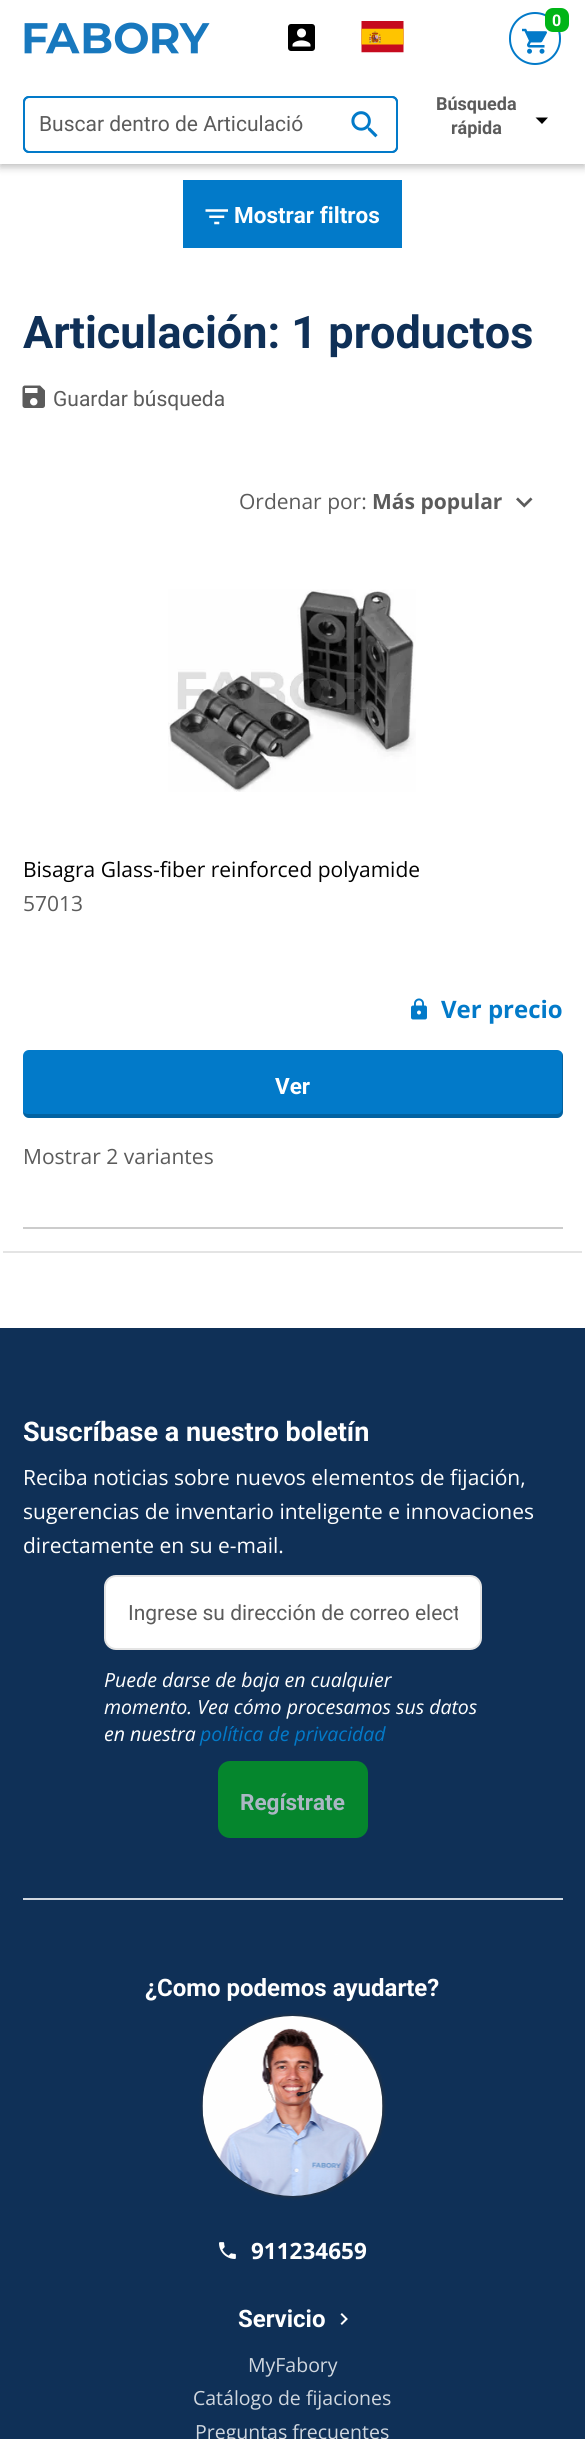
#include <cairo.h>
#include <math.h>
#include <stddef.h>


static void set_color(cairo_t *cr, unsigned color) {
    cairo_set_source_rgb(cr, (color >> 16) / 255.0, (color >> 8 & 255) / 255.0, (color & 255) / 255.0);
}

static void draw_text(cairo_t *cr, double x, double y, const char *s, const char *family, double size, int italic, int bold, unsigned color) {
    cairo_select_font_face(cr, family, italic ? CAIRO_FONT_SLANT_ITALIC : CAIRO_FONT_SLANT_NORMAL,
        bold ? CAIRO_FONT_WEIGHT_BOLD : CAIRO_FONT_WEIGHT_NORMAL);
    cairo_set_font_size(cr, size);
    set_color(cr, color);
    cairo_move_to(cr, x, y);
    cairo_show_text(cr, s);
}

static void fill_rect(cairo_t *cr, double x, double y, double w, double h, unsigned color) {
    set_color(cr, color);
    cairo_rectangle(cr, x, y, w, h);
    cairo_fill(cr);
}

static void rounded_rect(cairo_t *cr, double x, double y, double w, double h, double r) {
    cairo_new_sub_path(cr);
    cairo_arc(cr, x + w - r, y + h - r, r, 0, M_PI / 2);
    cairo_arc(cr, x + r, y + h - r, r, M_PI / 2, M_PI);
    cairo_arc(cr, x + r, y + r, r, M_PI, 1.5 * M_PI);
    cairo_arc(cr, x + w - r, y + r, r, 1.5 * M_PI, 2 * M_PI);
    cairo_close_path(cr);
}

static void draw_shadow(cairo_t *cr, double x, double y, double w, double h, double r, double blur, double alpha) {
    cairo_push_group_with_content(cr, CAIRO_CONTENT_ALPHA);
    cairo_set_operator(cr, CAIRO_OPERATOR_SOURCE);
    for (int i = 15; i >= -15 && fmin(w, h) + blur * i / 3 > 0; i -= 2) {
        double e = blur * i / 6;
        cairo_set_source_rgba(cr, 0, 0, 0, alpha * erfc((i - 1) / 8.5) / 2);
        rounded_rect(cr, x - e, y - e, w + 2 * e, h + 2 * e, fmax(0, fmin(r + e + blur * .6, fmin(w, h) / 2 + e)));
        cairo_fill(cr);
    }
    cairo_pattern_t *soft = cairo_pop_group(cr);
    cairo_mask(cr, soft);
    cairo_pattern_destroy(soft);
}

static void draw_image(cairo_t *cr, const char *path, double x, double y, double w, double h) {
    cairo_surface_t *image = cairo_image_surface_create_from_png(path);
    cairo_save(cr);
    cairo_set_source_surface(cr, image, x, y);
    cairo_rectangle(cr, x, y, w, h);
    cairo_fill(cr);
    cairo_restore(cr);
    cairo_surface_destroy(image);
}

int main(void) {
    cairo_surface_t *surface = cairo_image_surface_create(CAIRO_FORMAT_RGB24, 585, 2439);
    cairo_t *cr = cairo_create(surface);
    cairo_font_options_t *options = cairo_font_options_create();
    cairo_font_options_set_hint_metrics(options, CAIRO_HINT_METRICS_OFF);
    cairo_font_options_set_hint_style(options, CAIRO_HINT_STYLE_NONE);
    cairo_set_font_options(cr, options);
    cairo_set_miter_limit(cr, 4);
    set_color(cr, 0xFFFFFF);
    cairo_paint(cr);
    set_color(cr, 0x000000);
    draw_shadow(cr, 0, 3, 585, 164, 0, 4, 0.26);
    fill_rect(cr, 0, 0, 585, 164, 0xFFFFFF);
    draw_image(cr, "assets/img1.png", 522, 28, 25, 26);
    rounded_rect(cr, 510, 13, 50, 51, 25);
    set_color(cr, 0x027AC9);
    cairo_stroke(cr);
    set_color(cr, 0x00B517);
    rounded_rect(cr, 545, 8, 24, 24, 8);
    cairo_fill(cr);
    draw_text(cr, 552, 26, "0", "Roboto", 16, 0, 1, 0xFFFFFF);
    rounded_rect(cr, 24, 97, 373, 55, 5);
    set_color(cr, 0x027AC9);
    cairo_stroke(cr);
    rounded_rect(cr, 24, 97, 373, 55, 5);
    cairo_stroke(cr);
    draw_text(cr, 39, 131, "Buscar dentro de Articulació", "Roboto", 21, 0, 0, 0x5B5B5B);
    draw_image(cr, "assets/img2.png", 351, 111, 27, 27);
    draw_text(cr, 436, 110, "Búsqueda", "Roboto", 18, 0, 1, 0x5B5B5B);
    draw_text(cr, 451, 134, "rápida", "Roboto", 18, 0, 1, 0x5B5B5B);
    set_color(cr, 0x000000);
    cairo_new_path(cr);
    cairo_move_to(cr, 535.5, 117.5);
    cairo_line_to(cr, 548, 117.5);
    cairo_line_to(cr, 542, 124);
    cairo_close_path(cr);
    cairo_fill(cr);
    draw_image(cr, "assets/img3.png", 24, 22, 186, 32);
    draw_image(cr, "assets/img4.png", 288, 24, 27, 27);
    draw_image(cr, "assets/img5.png", 361, 21, 43, 32);
    fill_rect(cr, 183, 180, 219, 68, 0x027AC9);
    draw_image(cr, "assets/img6.png", 205, 209, 23, 16);
    draw_text(cr, 234, 223, "Mostrar filtros", "Roboto", 22.5, 0, 1, 0xFFFFFF);
    draw_text(cr, 23, 348, "Articulación: 1 productos", "Roboto", 45, 0, 1, 0x0F3057);
    draw_image(cr, "assets/img7.png", 22, 385, 23, 23);
    draw_text(cr, 53, 406, "Guardar búsqueda", "Roboto", 21, 0, 0, 0x5B5B5B);
    draw_text(cr, 239, 509, "Ordenar por:", "Open Sans", 21, 0, 0, 0x5B5B5B);
    draw_text(cr, 372, 509, "Más popular", "Open Sans", 21, 0, 1, 0x5B5B5B);
    draw_image(cr, "assets/img8.png", 516, 497, 17, 11);
    fill_rect(cr, 3, 1251, 579, 2, 0xE4E4E4);
    fill_rect(cr, 23, 1227, 540, 2, 0xCCCCCC);
    draw_image(cr, "assets/img9.png", 168, 589, 248, 203);
    draw_text(cr, 23, 877, "Bisagra Glass-fiber reinforced polyamide", "Open Sans", 21, 0, 0, 0x000000);
    draw_text(cr, 23, 911, "57013", "Open Sans", 21, 0, 0, 0x5B5B5B);
    draw_image(cr, "assets/img10.png", 411, 998, 16, 22);
    draw_text(cr, 441, 1018, "Ver precio", "Open Sans", 24, 0, 1, 0x027AC9);
    rounded_rect(cr, 23, 1050, 540, 68, 6);
    cairo_fill(cr);
    cairo_set_source_rgba(cr, 0, 0, 0, 0.2);
    cairo_new_path(cr);
    cairo_move_to(cr, 23, 1112);
    cairo_curve_to(cr, 23, 1115, 26, 1118, 29, 1118);
    cairo_line_to(cr, 557, 1118);
    cairo_curve_to(cr, 560, 1118, 563, 1115, 563, 1112);
    cairo_line_to(cr, 563, 1056);
    cairo_curve_to(cr, 563, 1055, 563, 1054, 562, 1053);
    cairo_line_to(cr, 562, 1108);
    cairo_curve_to(cr, 562, 1112, 560, 1114, 556, 1114);
    cairo_line_to(cr, 28, 1114);
    cairo_curve_to(cr, 26, 1114, 24, 1113, 23, 1112);
    cairo_close_path(cr);
    cairo_fill(cr);
    draw_text(cr, 275, 1094, "Ver", "Roboto", 22.5, 0, 1, 0xFFFFFF);
    draw_text(cr, 23, 1164, "Mostrar 2 variantes", "Open Sans", 21, 0, 0, 0x5B5B5B);
    fill_rect(cr, 0, 1328, 585, 1111, 0x0F3057);
    draw_text(cr, 23, 1441, "Suscríbase a nuestro boletín", "Roboto", 27, 0, 1, 0xFFFFFF);
    draw_text(cr, 23, 1485, "Reciba noticias sobre nuevos elementos de fijación,", "Open Sans", 21, 0, 0, 0xFFFFFF);
    draw_text(cr, 23, 1519, "sugerencias de inventario inteligente e innovaciones", "Open Sans", 21, 0, 0, 0xFFFFFF);
    draw_text(cr, 23, 1553, "directamente en su e-mail.", "Open Sans", 21, 0, 0, 0xFFFFFF);
    rounded_rect(cr, 105, 1576, 376, 73, 11);
    cairo_fill_preserve(cr);
    set_color(cr, 0xE4E4E4);
    cairo_stroke(cr);
    cairo_save(cr);
    cairo_rectangle(cr, 128, 1601, 330, 24);
    cairo_clip(cr);
    draw_text(cr, 128, 1620, "Ingrese su dirección de correo elect", "Roboto", 21, 0, 0, 0x5B5B5B);
    cairo_restore(cr);
    draw_text(cr, 104, 1687, "Puede darse de baja en cualquier", "Open Sans", 19.5, 1, 0, 0xFFFFFF);
    draw_text(cr, 104, 1714, "momento. Vea cómo procesamos sus datos", "Open Sans", 19.5, 1, 0, 0xFFFFFF);
    draw_text(cr, 104, 1741, "en nuestra", "Open Sans", 19.5, 1, 0, 0xFFFFFF);
    draw_text(cr, 200, 1741, "política de privacidad", "Open Sans", 19.5, 1, 0, 0x027AC9);
    set_color(cr, 0x05862D);
    rounded_rect(cr, 218, 1761, 150, 77, 12);
    cairo_fill(cr);
    draw_text(cr, 240, 1810, "Regístrate", "Roboto", 22.5, 0, 1, 0xABB7C4);
    fill_rect(cr, 23, 1898, 540, 2, 0xD0D7DF);
    draw_text(cr, 145, 1996, "¿Como podemos ayudarte?", "Roboto", 24, 0, 1, 0xFFFFFF);
    set_color(cr, 0x333333);
    draw_shadow(cr, 203, 2016, 180, 180, 90, 2, 1);
    draw_image(cr, "assets/img11.png", 202, 2016, 181, 180);
    draw_image(cr, "assets/img12.png", 219, 2242, 17, 17);
    draw_text(cr, 251, 2259, "911234659", "Open Sans", 22.5, 0, 1, 0xFFFFFF);
    draw_text(cr, 238, 2327, "Servicio", "Roboto", 24, 0, 1, 0xFFFFFF);
    draw_image(cr, "assets/img13.png", 340, 2313, 8, 12);
    draw_text(cr, 248, 2372, "MyFabory", "Open Sans", 19.5, 0, 0, 0xD0D7DF);
    draw_text(cr, 193, 2405, "Catálogo de fijaciones", "Open Sans", 19.5, 0, 0, 0xD0D7DF);
    draw_text(cr, 195, 2439, "Preguntas frecuentes", "Open Sans", 19.5, 0, 0, 0xD0D7DF);
    cairo_surface_write_to_png(surface, "output.png");
    cairo_font_options_destroy(options);
    cairo_destroy(cr);
    cairo_surface_destroy(surface);
    return 0;
}
